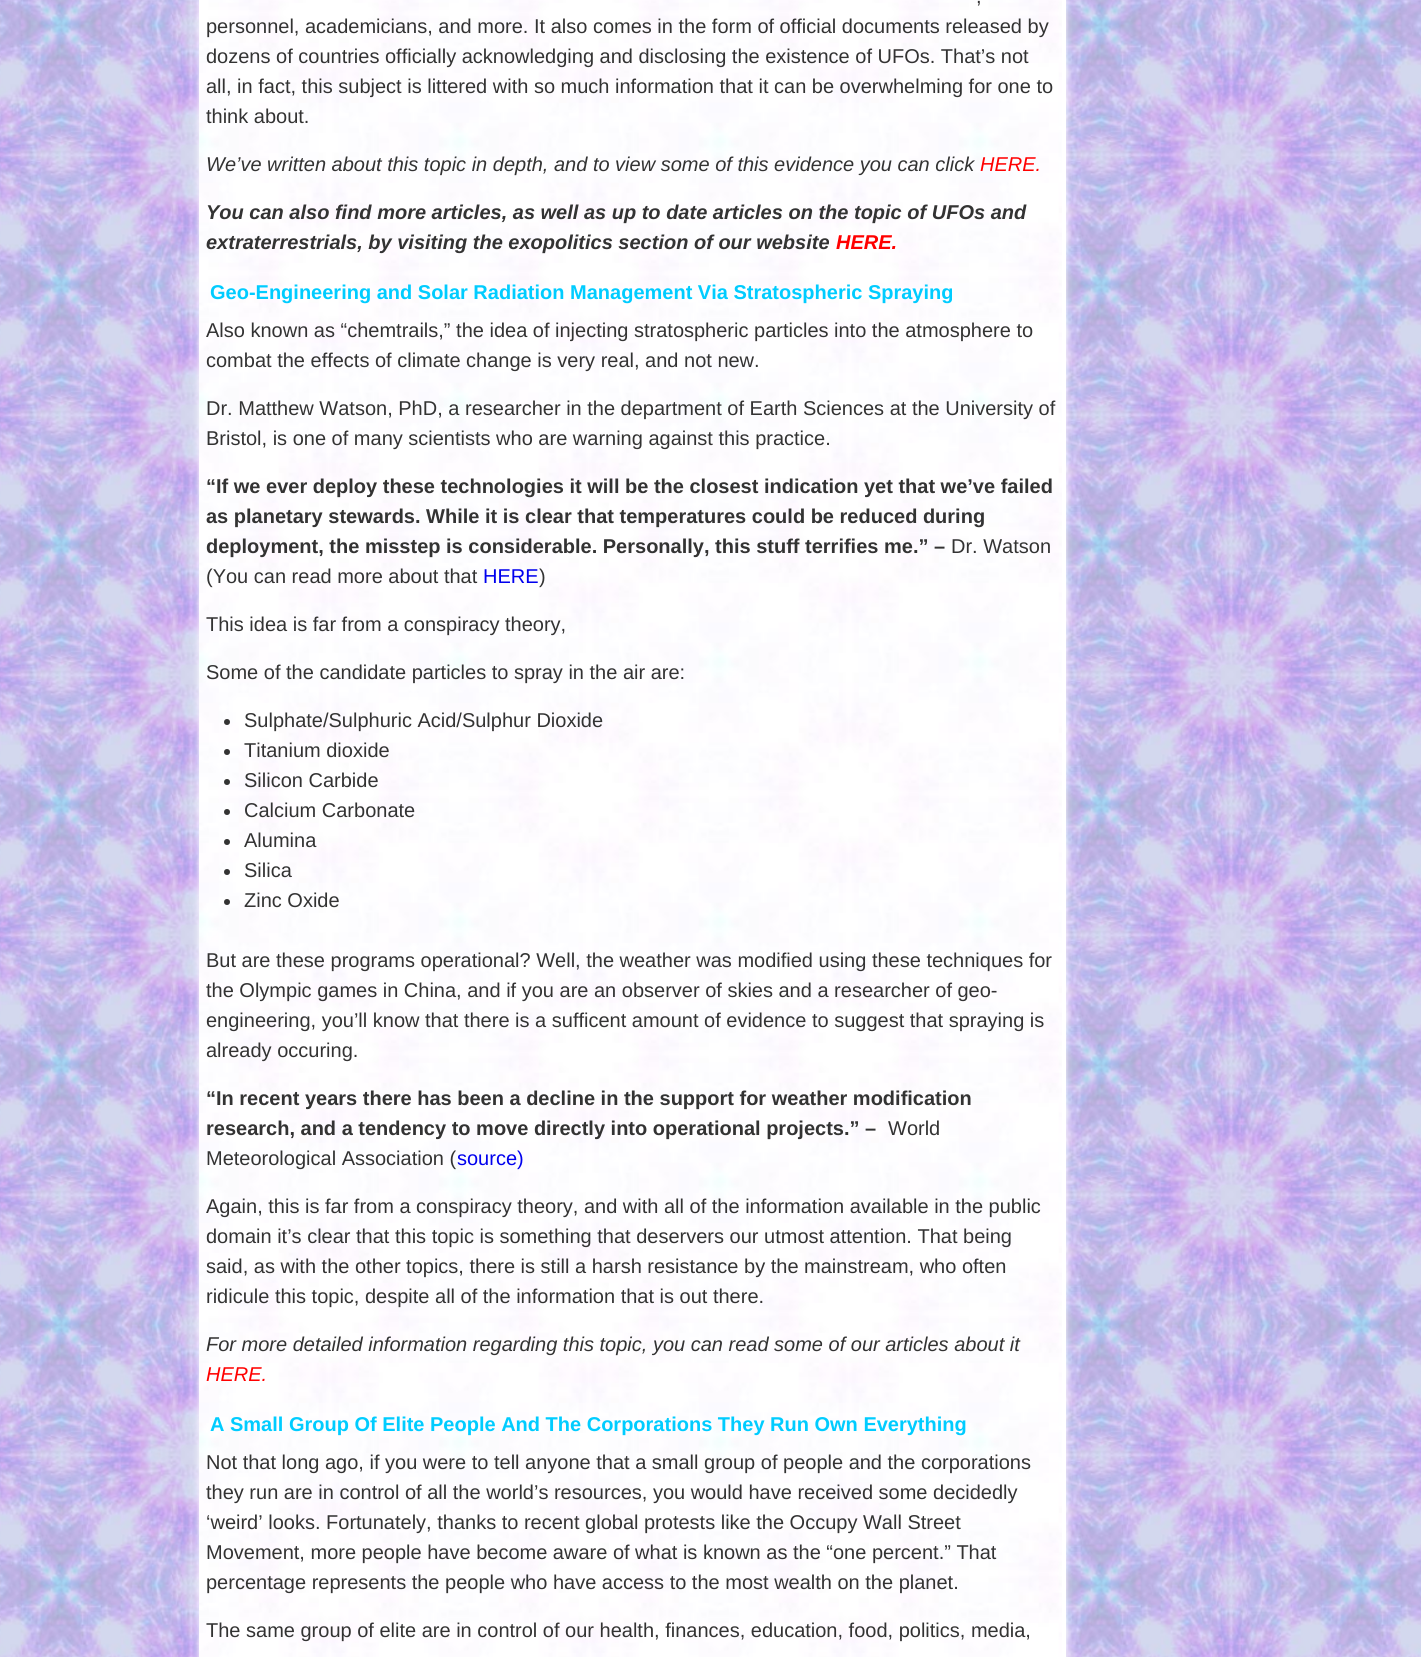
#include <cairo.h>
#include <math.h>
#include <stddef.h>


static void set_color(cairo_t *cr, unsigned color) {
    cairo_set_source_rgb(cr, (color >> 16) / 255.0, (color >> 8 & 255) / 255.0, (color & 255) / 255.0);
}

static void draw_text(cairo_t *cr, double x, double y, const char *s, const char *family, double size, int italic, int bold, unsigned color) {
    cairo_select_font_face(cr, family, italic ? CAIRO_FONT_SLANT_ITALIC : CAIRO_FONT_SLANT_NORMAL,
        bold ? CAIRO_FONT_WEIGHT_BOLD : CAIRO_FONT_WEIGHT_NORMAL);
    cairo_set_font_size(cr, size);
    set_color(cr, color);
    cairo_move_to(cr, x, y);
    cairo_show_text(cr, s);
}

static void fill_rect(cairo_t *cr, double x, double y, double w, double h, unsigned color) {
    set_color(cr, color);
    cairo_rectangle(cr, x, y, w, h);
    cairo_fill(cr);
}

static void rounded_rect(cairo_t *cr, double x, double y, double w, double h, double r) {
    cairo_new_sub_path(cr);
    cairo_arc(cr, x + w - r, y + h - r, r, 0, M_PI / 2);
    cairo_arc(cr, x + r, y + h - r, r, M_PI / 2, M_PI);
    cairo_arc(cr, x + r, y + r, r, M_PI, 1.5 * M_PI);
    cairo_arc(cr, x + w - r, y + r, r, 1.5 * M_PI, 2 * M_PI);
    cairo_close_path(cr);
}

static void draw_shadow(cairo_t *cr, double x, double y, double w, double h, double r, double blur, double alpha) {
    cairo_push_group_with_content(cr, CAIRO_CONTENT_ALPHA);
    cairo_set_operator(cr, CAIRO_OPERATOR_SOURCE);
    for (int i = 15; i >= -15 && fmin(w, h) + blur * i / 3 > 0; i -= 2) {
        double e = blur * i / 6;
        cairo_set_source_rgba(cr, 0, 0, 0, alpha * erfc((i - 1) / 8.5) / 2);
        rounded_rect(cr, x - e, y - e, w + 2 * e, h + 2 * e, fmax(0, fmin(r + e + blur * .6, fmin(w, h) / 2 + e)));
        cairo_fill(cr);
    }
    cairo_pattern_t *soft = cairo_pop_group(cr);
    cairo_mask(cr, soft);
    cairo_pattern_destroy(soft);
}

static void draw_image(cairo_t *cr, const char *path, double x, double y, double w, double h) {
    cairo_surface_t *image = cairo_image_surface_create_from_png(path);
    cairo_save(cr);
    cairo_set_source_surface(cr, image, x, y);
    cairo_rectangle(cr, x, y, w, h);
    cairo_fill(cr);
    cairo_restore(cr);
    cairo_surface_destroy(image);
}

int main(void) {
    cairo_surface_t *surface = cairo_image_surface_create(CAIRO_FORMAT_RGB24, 1421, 1657);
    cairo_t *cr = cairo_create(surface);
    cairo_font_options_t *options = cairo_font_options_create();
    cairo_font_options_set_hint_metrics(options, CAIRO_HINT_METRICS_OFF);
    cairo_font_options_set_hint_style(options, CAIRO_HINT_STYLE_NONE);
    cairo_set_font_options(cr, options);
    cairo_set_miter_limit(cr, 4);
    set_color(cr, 0xFFFFFF);
    cairo_paint(cr);
    draw_image(cr, "assets/img1.png", 0, 0, 1421, 1657);
    draw_shadow(cr, 199, -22, 867, 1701, 10, 4, 1);
    fill_rect(cr, 1062, 0, 4, 1657, 0xFFFFFF);
    draw_image(cr, "assets/img2.png", 199, 0, 863, 1657);
    draw_text(cr, 976, 3, ",", "Liberation Sans", 20, 0, 0, 0x333333);
    draw_text(cr, 206, 33, "personnel, academicians, and more. It also comes in the form of official documents released by", "Liberation Sans", 20, 0, 0, 0x333333);
    draw_text(cr, 206, 63, "dozens of countries officially acknowledging and disclosing the existence of UFOs. That’s not", "Liberation Sans", 20, 0, 0, 0x333333);
    draw_text(cr, 206, 93, "all, in fact, this subject is littered with so much information that it can be overwhelming for one to", "Liberation Sans", 20, 0, 0, 0x333333);
    draw_text(cr, 206, 123, "think about.", "Liberation Sans", 20, 0, 0, 0x333333);
    draw_text(cr, 206, 171, "We’ve written about this topic in depth, and to view some of this evidence you can click", "Liberation Sans", 20, 1, 0, 0x333333);
    draw_text(cr, 980, 171, "HERE.", "Liberation Sans", 20, 1, 0, 0xFF0000);
    draw_text(cr, 206, 219, "You can also find more articles, as well as up to date articles on the topic of UFOs and", "Liberation Sans", 20, 1, 1, 0x333333);
    draw_text(cr, 206, 249, "extraterrestrials, by visiting the exopolitics section of our website", "Liberation Sans", 20, 1, 1, 0x333333);
    draw_text(cr, 836, 249, "HERE.", "Liberation Sans", 20, 1, 1, 0xFF0000);
    draw_text(cr, 210, 299, "Geo-Engineering and Solar Radiation Management Via Stratospheric Spraying", "Liberation Sans", 20, 0, 1, 0x00CCFF);
    draw_text(cr, 206, 337, "Also known as “chemtrails,” the idea of injecting stratospheric particles into the atmosphere to", "Liberation Sans", 20, 0, 0, 0x333333);
    draw_text(cr, 206, 367, "combat the effects of climate change is very real, and not new.", "Liberation Sans", 20, 0, 0, 0x333333);
    draw_text(cr, 206, 415, "Dr. Matthew Watson, PhD, a researcher in the department of Earth Sciences at the University of", "Liberation Sans", 20, 0, 0, 0x333333);
    draw_text(cr, 206, 445, "Bristol, is one of many scientists who are warning against this practice.", "Liberation Sans", 20, 0, 0, 0x333333);
    draw_text(cr, 206, 493, "“If we ever deploy these technologies it will be the closest indication yet that we’ve failed", "Liberation Sans", 20, 0, 1, 0x333333);
    draw_text(cr, 206, 523, "as planetary stewards. While it is clear that temperatures could be reduced during", "Liberation Sans", 20, 0, 1, 0x333333);
    draw_text(cr, 206, 553, "deployment, the misstep is considerable. Personally, this stuff terrifies me.” –", "Liberation Sans", 20, 0, 1, 0x333333);
    draw_text(cr, 951, 553, "Dr. Watson", "Liberation Sans", 20, 0, 0, 0x333333);
    draw_text(cr, 206, 583, "(You can read more about that", "Liberation Sans", 20, 0, 0, 0x333333);
    draw_text(cr, 483, 583, "HERE", "Liberation Sans", 20, 0, 0, 0x0000EE);
    draw_text(cr, 539, 583, ")", "Liberation Sans", 20, 0, 0, 0x333333);
    draw_text(cr, 206, 631, "This idea is far from a conspiracy theory,", "Liberation Sans", 20, 0, 0, 0x333333);
    draw_text(cr, 206, 679, "Some of the candidate particles to spray in the air are:", "Liberation Sans", 20, 0, 0, 0x333333);
    cairo_new_path(cr);
    cairo_arc(cr, 227, 722, 3, 0, 2 * M_PI);
    cairo_fill(cr);
    draw_text(cr, 244, 727, "Sulphate/Sulphuric Acid/Sulphur Dioxide", "Liberation Sans", 20, 0, 0, 0x333333);
    cairo_new_path(cr);
    cairo_arc(cr, 227, 752, 3, 0, 2 * M_PI);
    cairo_fill(cr);
    draw_text(cr, 244, 757, "Titanium dioxide", "Liberation Sans", 20, 0, 0, 0x333333);
    cairo_new_path(cr);
    cairo_arc(cr, 227, 782, 3, 0, 2 * M_PI);
    cairo_fill(cr);
    draw_text(cr, 244, 787, "Silicon Carbide", "Liberation Sans", 20, 0, 0, 0x333333);
    cairo_new_path(cr);
    cairo_arc(cr, 227, 812, 3, 0, 2 * M_PI);
    cairo_fill(cr);
    draw_text(cr, 244, 817, "Calcium Carbonate", "Liberation Sans", 20, 0, 0, 0x333333);
    cairo_new_path(cr);
    cairo_arc(cr, 227, 842, 3, 0, 2 * M_PI);
    cairo_fill(cr);
    draw_text(cr, 244, 847, "Alumina", "Liberation Sans", 20, 0, 0, 0x333333);
    cairo_new_path(cr);
    cairo_arc(cr, 227, 872, 3, 0, 2 * M_PI);
    cairo_fill(cr);
    draw_text(cr, 244, 877, "Silica", "Liberation Sans", 20, 0, 0, 0x333333);
    cairo_new_path(cr);
    cairo_arc(cr, 227, 902, 3, 0, 2 * M_PI);
    cairo_fill(cr);
    draw_text(cr, 244, 907, "Zinc Oxide", "Liberation Sans", 20, 0, 0, 0x333333);
    draw_text(cr, 206, 967, "But are these programs operational? Well, the weather was modified using these techniques for", "Liberation Sans", 20, 0, 0, 0x333333);
    draw_text(cr, 206, 997, "the Olympic games in China, and if you are an observer of skies and a researcher of geo-", "Liberation Sans", 20, 0, 0, 0x333333);
    draw_text(cr, 206, 1027, "engineering, you’ll know that there is a sufficent amount of evidence to suggest that spraying is", "Liberation Sans", 20, 0, 0, 0x333333);
    draw_text(cr, 206, 1057, "already occuring.", "Liberation Sans", 20, 0, 0, 0x333333);
    draw_text(cr, 206, 1105, "“In recent years there has been a decline in the support for weather modification", "Liberation Sans", 20, 0, 1, 0x333333);
    draw_text(cr, 206, 1135, "research, and a tendency to move directly into operational projects.” –", "Liberation Sans", 20, 0, 1, 0x333333);
    draw_text(cr, 888, 1135, "World", "Liberation Sans", 20, 0, 0, 0x333333);
    draw_text(cr, 206, 1165, "Meteorological Association (", "Liberation Sans", 20, 0, 0, 0x333333);
    draw_text(cr, 457, 1165, "source)", "Liberation Sans", 20, 0, 0, 0x0000EE);
    draw_text(cr, 206, 1213, "Again, this is far from a conspiracy theory, and with all of the information available in the public", "Liberation Sans", 20, 0, 0, 0x333333);
    draw_text(cr, 206, 1243, "domain it’s clear that this topic is something that deservers our utmost attention. That being", "Liberation Sans", 20, 0, 0, 0x333333);
    draw_text(cr, 206, 1273, "said, as with the other topics, there is still a harsh resistance by the mainstream, who often", "Liberation Sans", 20, 0, 0, 0x333333);
    draw_text(cr, 206, 1303, "ridicule this topic, despite all of the information that is out there.", "Liberation Sans", 20, 0, 0, 0x333333);
    draw_text(cr, 206, 1351, "For more detailed information regarding this topic, you can read some of our articles about it", "Liberation Sans", 20, 1, 0, 0x333333);
    draw_text(cr, 206, 1381, "HERE.", "Liberation Sans", 20, 1, 0, 0xFF0000);
    draw_text(cr, 210, 1431, "A Small Group Of Elite People And The Corporations They Run Own Everything", "Liberation Sans", 20, 0, 1, 0x00CCFF);
    draw_text(cr, 206, 1469, "Not that long ago, if you were to tell anyone that a small group of people and the corporations", "Liberation Sans", 20, 0, 0, 0x333333);
    draw_text(cr, 206, 1499, "they run are in control of all the world’s resources, you would have received some decidedly", "Liberation Sans", 20, 0, 0, 0x333333);
    draw_text(cr, 206, 1529, "‘weird’ looks. Fortunately, thanks to recent global protests like the Occupy Wall Street", "Liberation Sans", 20, 0, 0, 0x333333);
    draw_text(cr, 206, 1559, "Movement, more people have become aware of what is known as the “one percent.” That", "Liberation Sans", 20, 0, 0, 0x333333);
    draw_text(cr, 206, 1589, "percentage represents the people who have access to the most wealth on the planet.", "Liberation Sans", 20, 0, 0, 0x333333);
    draw_text(cr, 206, 1637, "The same group of elite are in control of our health, finances, education, food, politics, media,", "Liberation Sans", 20, 0, 0, 0x333333);
    cairo_surface_write_to_png(surface, "output.png");
    cairo_font_options_destroy(options);
    cairo_destroy(cr);
    cairo_surface_destroy(surface);
    return 0;
}
